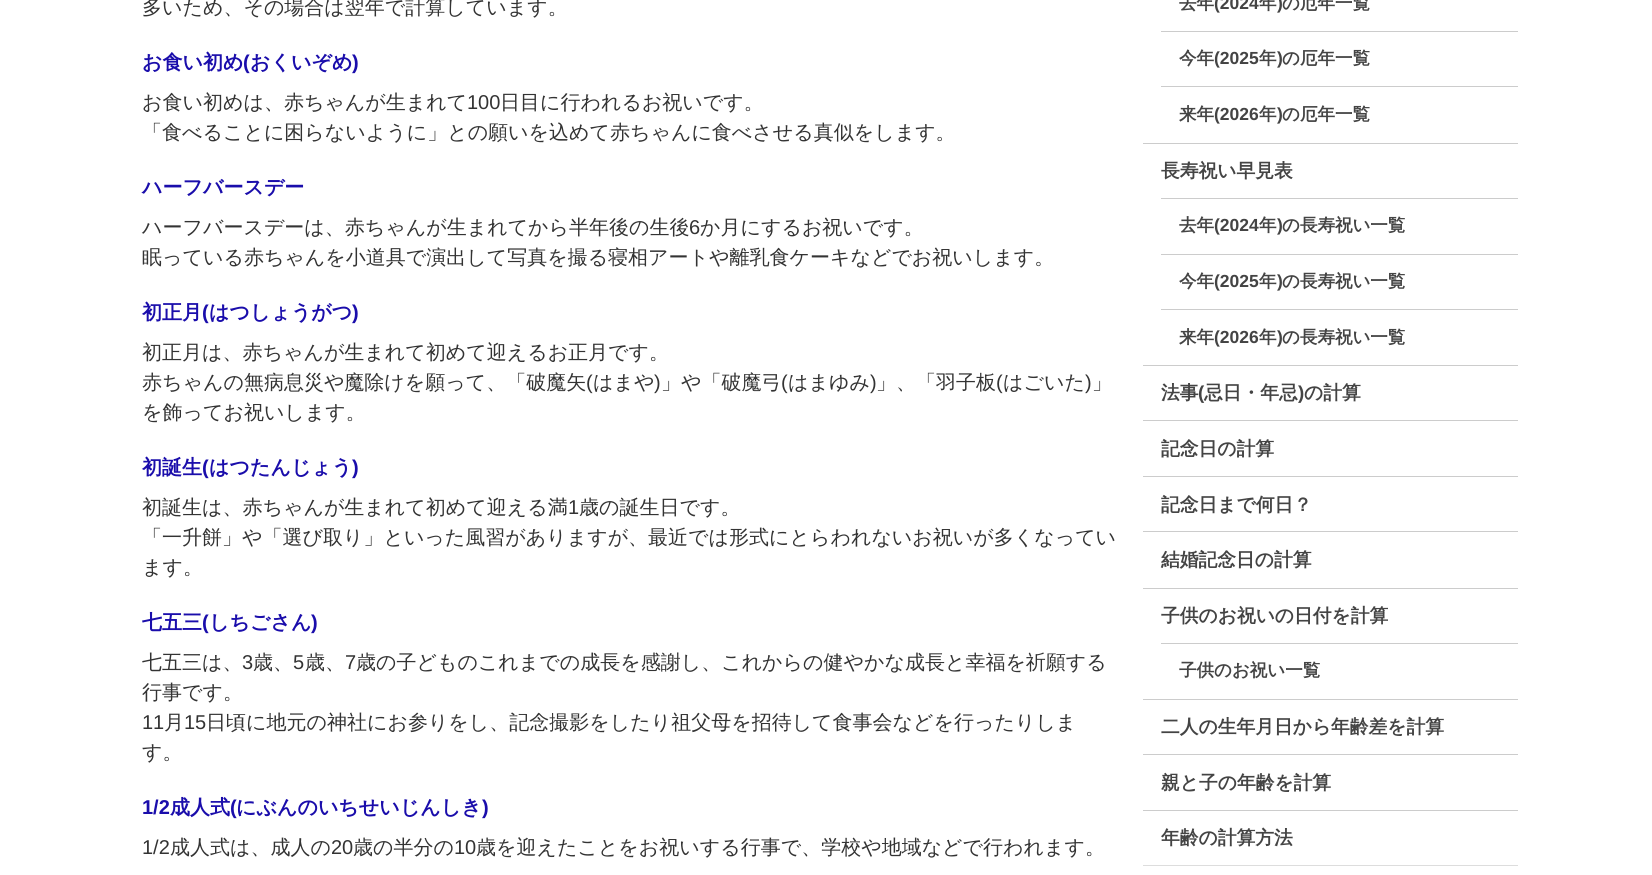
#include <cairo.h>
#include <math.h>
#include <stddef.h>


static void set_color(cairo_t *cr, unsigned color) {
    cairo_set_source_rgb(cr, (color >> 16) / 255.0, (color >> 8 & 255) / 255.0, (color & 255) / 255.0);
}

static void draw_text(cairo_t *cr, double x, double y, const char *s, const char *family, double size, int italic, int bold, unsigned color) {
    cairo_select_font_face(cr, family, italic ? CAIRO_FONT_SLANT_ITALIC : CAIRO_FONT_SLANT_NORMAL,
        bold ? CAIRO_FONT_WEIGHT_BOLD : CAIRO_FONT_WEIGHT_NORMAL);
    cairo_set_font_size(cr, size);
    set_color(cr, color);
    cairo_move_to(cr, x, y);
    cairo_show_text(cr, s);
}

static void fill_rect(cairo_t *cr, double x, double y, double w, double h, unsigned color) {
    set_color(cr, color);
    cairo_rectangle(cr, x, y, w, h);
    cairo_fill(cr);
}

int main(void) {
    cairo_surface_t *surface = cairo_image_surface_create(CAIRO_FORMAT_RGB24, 1652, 875);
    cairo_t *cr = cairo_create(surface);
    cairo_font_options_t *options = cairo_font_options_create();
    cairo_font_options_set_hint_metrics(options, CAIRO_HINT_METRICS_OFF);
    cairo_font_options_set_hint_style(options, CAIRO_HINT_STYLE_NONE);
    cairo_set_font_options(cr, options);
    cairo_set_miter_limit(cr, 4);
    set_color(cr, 0xFFFFFF);
    cairo_paint(cr);
    draw_text(cr, 142, 14, "多いため、その場合は翌年で計算しています。", "WenQuanYi Zen Hei Medium", 20, 0, 0, 0x333333);
    draw_text(cr, 142, 69, "お食い初め", "WenQuanYi Zen Hei", 20, 0, 1, 0x1A0DAB);
    draw_text(cr, 243, 69, "(", "Liberation Sans", 20, 0, 1, 0x1A0DAB);
    draw_text(cr, 250, 69, "おくいぞめ", "WenQuanYi Zen Hei", 20, 0, 1, 0x1A0DAB);
    draw_text(cr, 352, 69, ")", "Liberation Sans", 20, 0, 1, 0x1A0DAB);
    draw_text(cr, 142, 109, "お食い初めは、赤ちゃんが生まれて", "WenQuanYi Zen Hei Medium", 20, 0, 0, 0x333333);
    draw_text(cr, 467, 109, "100", "Liberation Sans", 20, 0, 0, 0x333333);
    draw_text(cr, 500, 109, "日目に行われるお祝いです。", "WenQuanYi Zen Hei Medium", 20, 0, 0, 0x333333);
    draw_text(cr, 142, 139, "「食べることに困らないように」との願いを込めて赤ちゃんに食べさせる真似をします。", "WenQuanYi Zen Hei Medium", 20, 0, 0, 0x333333);
    draw_text(cr, 142, 194, "ハーフバースデー", "WenQuanYi Zen Hei", 20, 0, 1, 0x1A0DAB);
    draw_text(cr, 142, 234, "ハーフバースデーは、赤ちゃんが生まれてから半年後の生後", "WenQuanYi Zen Hei Medium", 20, 0, 0, 0x333333);
    draw_text(cr, 689, 234, "6", "Liberation Sans", 20, 0, 0, 0x333333);
    draw_text(cr, 700, 234, "か月にするお祝いです。", "WenQuanYi Zen Hei Medium", 20, 0, 0, 0x333333);
    draw_text(cr, 142, 264, "眠っている赤ちゃんを小道具で演出して写真を撮る寝相アートや離乳食ケーキなどでお祝いします。", "WenQuanYi Zen Hei Medium", 20, 0, 0, 0x333333);
    draw_text(cr, 142, 319, "初正月", "WenQuanYi Zen Hei", 20, 0, 1, 0x1A0DAB);
    draw_text(cr, 202, 319, "(", "Liberation Sans", 20, 0, 1, 0x1A0DAB);
    draw_text(cr, 209, 319, "はつしょうがつ", "WenQuanYi Zen Hei", 20, 0, 1, 0x1A0DAB);
    draw_text(cr, 352, 319, ")", "Liberation Sans", 20, 0, 1, 0x1A0DAB);
    draw_text(cr, 142, 359, "初正月は、赤ちゃんが生まれて初めて迎えるお正月です。", "WenQuanYi Zen Hei Medium", 20, 0, 0, 0x333333);
    draw_text(cr, 142, 389, "赤ちゃんの無病息災や魔除けを願って、「破魔矢", "WenQuanYi Zen Hei Medium", 20, 0, 0, 0x333333);
    draw_text(cr, 586, 389, "(", "Liberation Sans", 20, 0, 0, 0x333333);
    draw_text(cr, 593, 389, "はまや", "WenQuanYi Zen Hei Medium", 20, 0, 0, 0x333333);
    draw_text(cr, 654, 389, ")", "Liberation Sans", 20, 0, 0, 0x333333);
    draw_text(cr, 661, 389, "」や「破魔弓", "WenQuanYi Zen Hei Medium", 20, 0, 0, 0x333333);
    draw_text(cr, 781, 389, "(", "Liberation Sans", 20, 0, 0, 0x333333);
    draw_text(cr, 788, 389, "はまゆみ", "WenQuanYi Zen Hei Medium", 20, 0, 0, 0x333333);
    draw_text(cr, 870, 389, ")", "Liberation Sans", 20, 0, 0, 0x333333);
    draw_text(cr, 876, 389, "」、「羽子板", "WenQuanYi Zen Hei Medium", 20, 0, 0, 0x333333);
    draw_text(cr, 996, 389, "(", "Liberation Sans", 20, 0, 0, 0x333333);
    draw_text(cr, 1003, 389, "はごいた", "WenQuanYi Zen Hei Medium", 20, 0, 0, 0x333333);
    draw_text(cr, 1085, 389, ")", "Liberation Sans", 20, 0, 0, 0x333333);
    draw_text(cr, 1092, 389, "」", "WenQuanYi Zen Hei Medium", 20, 0, 0, 0x333333);
    draw_text(cr, 142, 419, "を飾ってお祝いします。", "WenQuanYi Zen Hei Medium", 20, 0, 0, 0x333333);
    draw_text(cr, 142, 474, "初誕生", "WenQuanYi Zen Hei", 20, 0, 1, 0x1A0DAB);
    draw_text(cr, 202, 474, "(", "Liberation Sans", 20, 0, 1, 0x1A0DAB);
    draw_text(cr, 209, 474, "はつたんじょう", "WenQuanYi Zen Hei", 20, 0, 1, 0x1A0DAB);
    draw_text(cr, 352, 474, ")", "Liberation Sans", 20, 0, 1, 0x1A0DAB);
    draw_text(cr, 142, 514, "初誕生は、赤ちゃんが生まれて初めて迎える満", "WenQuanYi Zen Hei Medium", 20, 0, 0, 0x333333);
    draw_text(cr, 568, 514, "1", "Liberation Sans", 20, 0, 0, 0x333333);
    draw_text(cr, 579, 514, "歳の誕生日です。", "WenQuanYi Zen Hei Medium", 20, 0, 0, 0x333333);
    draw_text(cr, 142, 544, "「一升餅」や「選び取り」といった風習がありますが、最近では形式にとらわれないお祝いが多くなってい", "WenQuanYi Zen Hei Medium", 20, 0, 0, 0x333333);
    draw_text(cr, 142, 574, "ます。", "WenQuanYi Zen Hei Medium", 20, 0, 0, 0x333333);
    draw_text(cr, 142, 629, "七五三", "WenQuanYi Zen Hei", 20, 0, 1, 0x1A0DAB);
    draw_text(cr, 202, 629, "(", "Liberation Sans", 20, 0, 1, 0x1A0DAB);
    draw_text(cr, 209, 629, "しちごさん", "WenQuanYi Zen Hei", 20, 0, 1, 0x1A0DAB);
    draw_text(cr, 311, 629, ")", "Liberation Sans", 20, 0, 1, 0x1A0DAB);
    draw_text(cr, 142, 669, "七五三は、", "WenQuanYi Zen Hei Medium", 20, 0, 0, 0x333333);
    draw_text(cr, 242, 669, "3", "Liberation Sans", 20, 0, 0, 0x333333);
    draw_text(cr, 253, 669, "歳、", "WenQuanYi Zen Hei Medium", 20, 0, 0, 0x333333);
    draw_text(cr, 293, 669, "5", "Liberation Sans", 20, 0, 0, 0x333333);
    draw_text(cr, 305, 669, "歳、", "WenQuanYi Zen Hei Medium", 20, 0, 0, 0x333333);
    draw_text(cr, 345, 669, "7", "Liberation Sans", 20, 0, 0, 0x333333);
    draw_text(cr, 356, 669, "歳の子どものこれまでの成長を感謝し、これからの健やかな成長と幸福を祈願する", "WenQuanYi Zen Hei Medium", 20, 0, 0, 0x333333);
    draw_text(cr, 142, 699, "行事です。", "WenQuanYi Zen Hei Medium", 20, 0, 0, 0x333333);
    draw_text(cr, 142, 729, "11", "Liberation Sans", 20, 0, 0, 0x333333);
    draw_text(cr, 164, 729, "月", "WenQuanYi Zen Hei Medium", 20, 0, 0, 0x333333);
    draw_text(cr, 184, 729, "15", "Liberation Sans", 20, 0, 0, 0x333333);
    draw_text(cr, 206, 729, "日頃に地元の神社にお参りをし、記念撮影をしたり祖父母を招待して食事会などを行ったりしま", "WenQuanYi Zen Hei Medium", 20, 0, 0, 0x333333);
    draw_text(cr, 142, 759, "す。", "WenQuanYi Zen Hei Medium", 20, 0, 0, 0x333333);
    draw_text(cr, 142, 814, "1/2", "Liberation Sans", 20, 0, 1, 0x1A0DAB);
    draw_text(cr, 170, 814, "成人式", "WenQuanYi Zen Hei", 20, 0, 1, 0x1A0DAB);
    draw_text(cr, 230, 814, "(", "Liberation Sans", 20, 0, 1, 0x1A0DAB);
    draw_text(cr, 236, 814, "にぶんのいちせいじんしき", "WenQuanYi Zen Hei", 20, 0, 1, 0x1A0DAB);
    draw_text(cr, 482, 814, ")", "Liberation Sans", 20, 0, 1, 0x1A0DAB);
    draw_text(cr, 142, 854, "1/2", "Liberation Sans", 20, 0, 0, 0x333333);
    draw_text(cr, 170, 854, "成人式は、成人の", "WenQuanYi Zen Hei Medium", 20, 0, 0, 0x333333);
    draw_text(cr, 331, 854, "20", "Liberation Sans", 20, 0, 0, 0x333333);
    draw_text(cr, 353, 854, "歳の半分の", "WenQuanYi Zen Hei Medium", 20, 0, 0, 0x333333);
    draw_text(cr, 454, 854, "10", "Liberation Sans", 20, 0, 0, 0x333333);
    draw_text(cr, 476, 854, "歳を迎えたことをお祝いする行事で、学校や地域などで行われます。", "WenQuanYi Zen Hei Medium", 20, 0, 0, 0x333333);
    fill_rect(cr, 1143, 865, 375, 1, 0xDDDDDD);
    draw_text(cr, 1179, 9, "去年", "WenQuanYi Zen Hei", 17.5, 0, 1, 0x444444);
    draw_text(cr, 1214, 9, "(2024", "Liberation Sans", 17.5, 0, 1, 0x444444);
    draw_text(cr, 1259, 9, "年", "WenQuanYi Zen Hei", 17.5, 0, 1, 0x444444);
    draw_text(cr, 1277, 9, ")", "Liberation Sans", 17.5, 0, 1, 0x444444);
    draw_text(cr, 1282, 9, "の厄年一覧", "WenQuanYi Zen Hei", 17.5, 0, 1, 0x444444);
    fill_rect(cr, 1161, 31, 357, 1, 0xCCCCCC);
    draw_text(cr, 1179, 64, "今年", "WenQuanYi Zen Hei", 17.5, 0, 1, 0x444444);
    draw_text(cr, 1214, 64, "(2025", "Liberation Sans", 17.5, 0, 1, 0x444444);
    draw_text(cr, 1259, 64, "年", "WenQuanYi Zen Hei", 17.5, 0, 1, 0x444444);
    draw_text(cr, 1277, 64, ")", "Liberation Sans", 17.5, 0, 1, 0x444444);
    draw_text(cr, 1282, 64, "の厄年一覧", "WenQuanYi Zen Hei", 17.5, 0, 1, 0x444444);
    fill_rect(cr, 1161, 86, 357, 1, 0xCCCCCC);
    draw_text(cr, 1179, 120, "来年", "WenQuanYi Zen Hei", 17.5, 0, 1, 0x444444);
    draw_text(cr, 1214, 120, "(2026", "Liberation Sans", 17.5, 0, 1, 0x444444);
    draw_text(cr, 1259, 120, "年", "WenQuanYi Zen Hei", 17.5, 0, 1, 0x444444);
    draw_text(cr, 1277, 120, ")", "Liberation Sans", 17.5, 0, 1, 0x444444);
    draw_text(cr, 1282, 120, "の厄年一覧", "WenQuanYi Zen Hei", 17.5, 0, 1, 0x444444);
    fill_rect(cr, 1143, 143, 375, 1, 0xCCCCCC);
    draw_text(cr, 1161, 177, "長寿祝い早見表", "WenQuanYi Zen Hei", 18.75, 0, 1, 0x444444);
    fill_rect(cr, 1161, 198, 357, 1, 0xCCCCCC);
    draw_text(cr, 1179, 231, "去年", "WenQuanYi Zen Hei", 17.5, 0, 1, 0x444444);
    draw_text(cr, 1214, 231, "(2024", "Liberation Sans", 17.5, 0, 1, 0x444444);
    draw_text(cr, 1259, 231, "年", "WenQuanYi Zen Hei", 17.5, 0, 1, 0x444444);
    draw_text(cr, 1277, 231, ")", "Liberation Sans", 17.5, 0, 1, 0x444444);
    draw_text(cr, 1282, 231, "の長寿祝い一覧", "WenQuanYi Zen Hei", 17.5, 0, 1, 0x444444);
    fill_rect(cr, 1161, 254, 357, 1, 0xCCCCCC);
    draw_text(cr, 1179, 287, "今年", "WenQuanYi Zen Hei", 17.5, 0, 1, 0x444444);
    draw_text(cr, 1214, 287, "(2025", "Liberation Sans", 17.5, 0, 1, 0x444444);
    draw_text(cr, 1259, 287, "年", "WenQuanYi Zen Hei", 17.5, 0, 1, 0x444444);
    draw_text(cr, 1277, 287, ")", "Liberation Sans", 17.5, 0, 1, 0x444444);
    draw_text(cr, 1282, 287, "の長寿祝い一覧", "WenQuanYi Zen Hei", 17.5, 0, 1, 0x444444);
    fill_rect(cr, 1161, 309, 357, 1, 0xCCCCCC);
    draw_text(cr, 1179, 343, "来年", "WenQuanYi Zen Hei", 17.5, 0, 1, 0x444444);
    draw_text(cr, 1214, 343, "(2026", "Liberation Sans", 17.5, 0, 1, 0x444444);
    draw_text(cr, 1259, 343, "年", "WenQuanYi Zen Hei", 17.5, 0, 1, 0x444444);
    draw_text(cr, 1277, 343, ")", "Liberation Sans", 17.5, 0, 1, 0x444444);
    draw_text(cr, 1282, 343, "の長寿祝い一覧", "WenQuanYi Zen Hei", 17.5, 0, 1, 0x444444);
    fill_rect(cr, 1143, 365, 375, 1, 0xCCCCCC);
    draw_text(cr, 1161, 399, "法事", "WenQuanYi Zen Hei", 18.75, 0, 1, 0x444444);
    draw_text(cr, 1198, 399, "(", "Liberation Sans", 18.75, 0, 1, 0x444444);
    draw_text(cr, 1204, 399, "忌日・年忌", "WenQuanYi Zen Hei", 18.75, 0, 1, 0x444444);
    draw_text(cr, 1298, 399, ")", "Liberation Sans", 18.75, 0, 1, 0x444444);
    draw_text(cr, 1304, 399, "の計算", "WenQuanYi Zen Hei", 18.75, 0, 1, 0x444444);
    fill_rect(cr, 1143, 420, 375, 1, 0xCCCCCC);
    draw_text(cr, 1161, 455, "記念日の計算", "WenQuanYi Zen Hei", 18.75, 0, 1, 0x444444);
    fill_rect(cr, 1143, 476, 375, 1, 0xCCCCCC);
    draw_text(cr, 1161, 511, "記念日まで何日？", "WenQuanYi Zen Hei", 18.75, 0, 1, 0x444444);
    fill_rect(cr, 1143, 531, 375, 1, 0xCCCCCC);
    draw_text(cr, 1161, 566, "結婚記念日の計算", "WenQuanYi Zen Hei", 18.75, 0, 1, 0x444444);
    fill_rect(cr, 1143, 588, 375, 1, 0xCCCCCC);
    draw_text(cr, 1161, 622, "子供のお祝いの日付を計算", "WenQuanYi Zen Hei", 18.75, 0, 1, 0x444444);
    fill_rect(cr, 1161, 643, 357, 1, 0xCCCCCC);
    draw_text(cr, 1179, 676, "子供のお祝い一覧", "WenQuanYi Zen Hei", 17.5, 0, 1, 0x444444);
    fill_rect(cr, 1143, 699, 375, 1, 0xCCCCCC);
    draw_text(cr, 1161, 733, "二人の生年月日から年齢差を計算", "WenQuanYi Zen Hei", 18.75, 0, 1, 0x444444);
    fill_rect(cr, 1143, 754, 375, 1, 0xCCCCCC);
    draw_text(cr, 1161, 789, "親と子の年齢を計算", "WenQuanYi Zen Hei", 18.75, 0, 1, 0x444444);
    fill_rect(cr, 1143, 810, 375, 1, 0xCCCCCC);
    draw_text(cr, 1161, 844, "年齢の計算方法", "WenQuanYi Zen Hei", 18.75, 0, 1, 0x444444);
    cairo_surface_write_to_png(surface, "output.png");
    cairo_font_options_destroy(options);
    cairo_destroy(cr);
    cairo_surface_destroy(surface);
    return 0;
}
